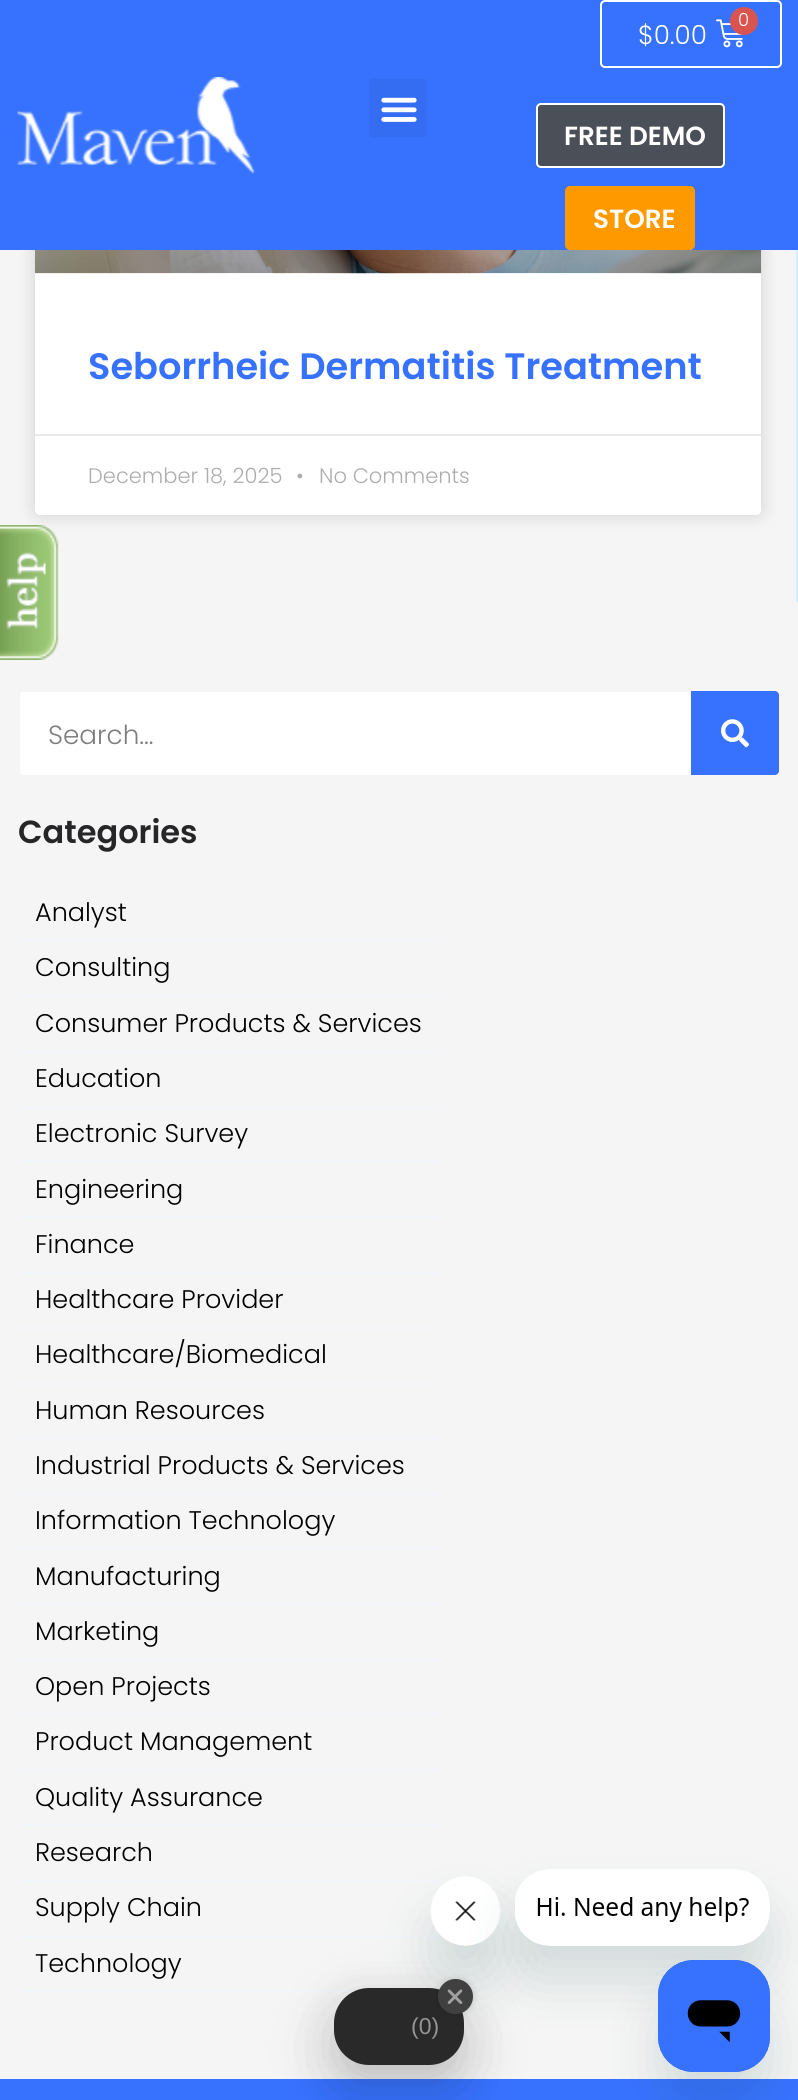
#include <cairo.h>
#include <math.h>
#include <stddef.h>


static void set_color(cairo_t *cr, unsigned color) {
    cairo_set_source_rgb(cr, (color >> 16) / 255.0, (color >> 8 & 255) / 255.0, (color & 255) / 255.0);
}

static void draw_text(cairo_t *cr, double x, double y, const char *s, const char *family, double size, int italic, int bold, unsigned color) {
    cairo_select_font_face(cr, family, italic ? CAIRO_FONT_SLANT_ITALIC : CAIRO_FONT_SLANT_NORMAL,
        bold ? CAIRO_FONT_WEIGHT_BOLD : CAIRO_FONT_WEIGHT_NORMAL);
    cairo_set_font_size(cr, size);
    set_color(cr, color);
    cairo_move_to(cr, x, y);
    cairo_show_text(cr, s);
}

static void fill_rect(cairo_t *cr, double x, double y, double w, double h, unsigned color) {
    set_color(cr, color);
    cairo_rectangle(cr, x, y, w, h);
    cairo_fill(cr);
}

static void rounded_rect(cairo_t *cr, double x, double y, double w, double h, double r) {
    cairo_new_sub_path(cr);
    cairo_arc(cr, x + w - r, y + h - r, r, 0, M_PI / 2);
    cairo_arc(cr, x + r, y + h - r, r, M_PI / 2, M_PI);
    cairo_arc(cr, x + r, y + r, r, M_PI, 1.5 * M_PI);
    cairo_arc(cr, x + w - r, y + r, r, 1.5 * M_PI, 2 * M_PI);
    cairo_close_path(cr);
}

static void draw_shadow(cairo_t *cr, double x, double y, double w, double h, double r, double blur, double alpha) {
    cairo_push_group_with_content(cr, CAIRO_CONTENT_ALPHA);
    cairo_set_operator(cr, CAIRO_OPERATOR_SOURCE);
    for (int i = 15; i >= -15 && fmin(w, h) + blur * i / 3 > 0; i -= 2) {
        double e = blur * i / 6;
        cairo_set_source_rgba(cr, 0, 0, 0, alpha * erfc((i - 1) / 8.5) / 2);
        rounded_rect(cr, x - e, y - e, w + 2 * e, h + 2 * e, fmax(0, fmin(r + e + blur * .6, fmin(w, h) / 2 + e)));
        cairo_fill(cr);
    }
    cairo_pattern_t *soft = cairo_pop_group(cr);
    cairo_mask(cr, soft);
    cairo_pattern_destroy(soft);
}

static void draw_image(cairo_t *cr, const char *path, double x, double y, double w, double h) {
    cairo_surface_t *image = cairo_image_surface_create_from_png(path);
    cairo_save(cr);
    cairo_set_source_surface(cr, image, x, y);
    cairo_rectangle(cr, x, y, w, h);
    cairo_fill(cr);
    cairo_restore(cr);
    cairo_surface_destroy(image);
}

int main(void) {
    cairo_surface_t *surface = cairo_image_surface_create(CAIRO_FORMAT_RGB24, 798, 2100);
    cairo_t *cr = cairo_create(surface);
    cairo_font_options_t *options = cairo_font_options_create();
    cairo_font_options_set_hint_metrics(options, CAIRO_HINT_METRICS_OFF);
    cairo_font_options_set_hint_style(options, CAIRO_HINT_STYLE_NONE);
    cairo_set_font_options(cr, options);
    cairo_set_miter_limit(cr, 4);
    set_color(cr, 0xF5F5F5);
    cairo_paint(cr);
    set_color(cr, 0x000000);
    draw_shadow(cr, 35, -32, 726, 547, 5, 9, 0.15);
    set_color(cr, 0xFFFFFF);
    rounded_rect(cr, 35, -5, 726, 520, 5);
    cairo_fill(cr);
    fill_rect(cr, 0, 0, 798, 250, 0x3772FF);
    draw_image(cr, "assets/img1.png", 17, 77, 238, 97);
    set_color(cr, 0x346CF2);
    rounded_rect(cr, 369, 79, 58, 58, 5);
    cairo_fill(cr);
    draw_image(cr, "assets/img2.png", 381, 97, 36, 25);
    rounded_rect(cr, 601, 1, 180, 66, 4);
    set_color(cr, 0xFFFFFF);
    cairo_stroke(cr);
    draw_image(cr, "assets/img3.png", 716, 19, 27, 29);
    set_color(cr, 0xD9534F);
    cairo_arc(cr, 744, 21, 14, 0, 2 * M_PI);
    cairo_fill(cr);
    draw_text(cr, 738, 26, "0", "Poppins Light", 18, 0, 0, 0xFFFFFF);
    draw_text(cr, 638, 44, "$0.00", "Poppins Light", 26.25, 0, 0, 0xFFFFFF);
    set_color(cr, 0x4B4F58);
    rounded_rect(cr, 537, 104, 187, 63, 4);
    cairo_fill_preserve(cr);
    set_color(cr, 0xFFFFFF);
    cairo_stroke(cr);
    draw_text(cr, 564, 145, "FREE DEMO", "Poppins SemiBold", 26.25, 0, 0, 0xFFFFFF);
    set_color(cr, 0xFF9900);
    rounded_rect(cr, 566, 187, 128, 62, 4);
    cairo_fill_preserve(cr);
    cairo_stroke(cr);
    draw_text(cr, 593, 228, "STORE", "Poppins SemiBold", 26.25, 0, 0, 0xFFFFFF);
    fill_rect(cr, 796, 250, 2, 352, 0xCFF1FF);
    draw_image(cr, "assets/img4.png", 35, 250, 727, 24);
    draw_text(cr, 88, 379, "Seborrheic Dermatitis Treatment", "Poppins SemiBold", 36.75, 0, 0, 0x3772FF);
    fill_rect(cr, 35, 434, 726, 2, 0xEAEAEA);
    draw_text(cr, 88, 483, "December 18, 2025", "Poppins Light", 21, 0, 0, 0xADADAD);
    draw_text(cr, 296, 483, "•", "Poppins Light", 21, 0, 0, 0xADADAD);
    draw_text(cr, 319, 483, "No Comments", "Poppins Light", 21, 0, 0, 0xADADAD);
    set_color(cr, 0xFFFFFF);
    rounded_rect(cr, 19, 691, 761, 85, 4);
    cairo_fill_preserve(cr);
    set_color(cr, 0xF5F5F5);
    cairo_stroke(cr);
    draw_text(cr, 48, 744, "Search...", "Poppins Light", 26.25, 0, 0, 0x7D7D7E);
    set_color(cr, 0x3772FF);
    cairo_new_path(cr);
    cairo_move_to(cr, 691, 691);
    cairo_line_to(cr, 775, 691);
    cairo_curve_to(cr, 777, 691, 779, 693, 779, 695);
    cairo_line_to(cr, 779, 771);
    cairo_curve_to(cr, 779, 773, 777, 775, 775, 775);
    cairo_line_to(cr, 691, 775);
    cairo_close_path(cr);
    cairo_fill(cr);
    draw_image(cr, "assets/img5.png", 721, 719, 28, 29);
    draw_text(cr, 18, 843, "Categories", "Poppins SemiBold", 32, 0, 0, 0x262628);
    fill_rect(cr, 18, 940, 421, 2, 0xF3F6FB);
    draw_text(cr, 35, 921, "Analyst", "Poppins Light", 25.5, 0, 0, 0x000000);
    fill_rect(cr, 18, 996, 421, 2, 0xF3F6FB);
    draw_text(cr, 35, 976, "Consulting", "Poppins Light", 25.5, 0, 0, 0x000000);
    fill_rect(cr, 18, 1050, 421, 2, 0xF3F6FB);
    draw_text(cr, 35, 1032, "Consumer Products & Services", "Poppins Light", 25.5, 0, 0, 0x000000);
    fill_rect(cr, 18, 1106, 421, 2, 0xF3F6FB);
    draw_text(cr, 35, 1087, "Education", "Poppins Light", 25.5, 0, 0, 0x000000);
    fill_rect(cr, 18, 1160, 421, 2, 0xF3F6FB);
    draw_text(cr, 35, 1142, "Electronic Survey", "Poppins Light", 25.5, 0, 0, 0x000000);
    fill_rect(cr, 18, 1216, 421, 2, 0xF3F6FB);
    draw_text(cr, 35, 1198, "Engineering", "Poppins Light", 25.5, 0, 0, 0x000000);
    fill_rect(cr, 18, 1272, 421, 2, 0xF3F6FB);
    draw_text(cr, 35, 1253, "Finance", "Poppins Light", 25.5, 0, 0, 0x000000);
    fill_rect(cr, 18, 1327, 421, 2, 0xF3F6FB);
    draw_text(cr, 35, 1308, "Healthcare Provider", "Poppins Light", 25.5, 0, 0, 0x000000);
    fill_rect(cr, 18, 1383, 421, 2, 0xF3F6FB);
    draw_text(cr, 35, 1363, "Healthcare/Biomedical", "Poppins Light", 25.5, 0, 0, 0x000000);
    fill_rect(cr, 18, 1437, 421, 2, 0xF3F6FB);
    draw_text(cr, 35, 1419, "Human Resources", "Poppins Light", 25.5, 0, 0, 0x000000);
    fill_rect(cr, 18, 1493, 421, 2, 0xF3F6FB);
    draw_text(cr, 35, 1474, "Industrial Products & Services", "Poppins Light", 25.5, 0, 0, 0x000000);
    fill_rect(cr, 18, 1547, 421, 2, 0xF3F6FB);
    draw_text(cr, 35, 1529, "Information Technology", "Poppins Light", 25.5, 0, 0, 0x000000);
    fill_rect(cr, 18, 1603, 421, 2, 0xF3F6FB);
    draw_text(cr, 35, 1585, "Manufacturing", "Poppins Light", 25.5, 0, 0, 0x000000);
    fill_rect(cr, 18, 1659, 421, 2, 0xF3F6FB);
    draw_text(cr, 35, 1640, "Marketing", "Poppins Light", 25.5, 0, 0, 0x000000);
    fill_rect(cr, 18, 1713, 421, 2, 0xF3F6FB);
    draw_text(cr, 35, 1695, "Open Projects", "Poppins Light", 25.5, 0, 0, 0x000000);
    fill_rect(cr, 18, 1769, 421, 2, 0xF3F6FB);
    draw_text(cr, 35, 1750, "Product Management", "Poppins Light", 25.5, 0, 0, 0x000000);
    fill_rect(cr, 18, 1824, 421, 2, 0xF3F6FB);
    draw_text(cr, 35, 1806, "Quality Assurance", "Poppins Light", 25.5, 0, 0, 0x000000);
    fill_rect(cr, 18, 1880, 421, 2, 0xF3F6FB);
    draw_text(cr, 35, 1861, "Research", "Poppins Light", 25.5, 0, 0, 0x000000);
    fill_rect(cr, 18, 1936, 421, 2, 0xF3F6FB);
    draw_text(cr, 35, 1916, "Supply Chain", "Poppins Light", 25.5, 0, 0, 0x000000);
    fill_rect(cr, 18, 1990, 340, 2, 0xF3F6FB);
    draw_text(cr, 35, 1972, "Technology", "Poppins Light", 25.5, 0, 0, 0x000000);
    fill_rect(cr, 0, 2079, 798, 21, 0x3772FF);
    draw_image(cr, "assets/img6.png", 0, 525, 59, 135);
    set_color(cr, 0x17494D);
    draw_shadow(cr, 431, 1911, 70, 70, 35, 26, 0.15);
    draw_image(cr, "assets/img8.png", 430, 1876, 71, 70);
    draw_shadow(cr, 515, 1904, 255, 77, 35, 26, 0.15);
    draw_image(cr, "assets/img7.png", 515, 1869, 255, 77);
    draw_shadow(cr, 658, 1995, 112, 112, 35, 26, 0.15);
    draw_image(cr, "assets/img9.png", 658, 1960, 112, 112);
    set_color(cr, 0x000000);
    draw_shadow(cr, 334, 2006, 130, 77, 35, 26, 0.15);
    draw_shadow(cr, 334, 2014, 130, 77, 35, 35, 0.1);
    set_color(cr, 0x292929);
    rounded_rect(cr, 334, 1988, 130, 77, 35);
    cairo_fill(cr);
    draw_text(cr, 411, 2034, "(0)", "Liberation Sans", 23, 0, 0, 0x949494);
    set_color(cr, 0x000000);
    draw_shadow(cr, 438, 1979, 35, 35, 17.5, 3.5, 0.15);
    set_color(cr, 0x404040);
    cairo_arc(cr, 455.5, 1996.5, 17.5, 0, 2 * M_PI);
    cairo_fill(cr);
    draw_image(cr, "assets/img10.png", 447, 1989, 16, 15);
    cairo_surface_write_to_png(surface, "output.png");
    cairo_font_options_destroy(options);
    cairo_destroy(cr);
    cairo_surface_destroy(surface);
    return 0;
}
